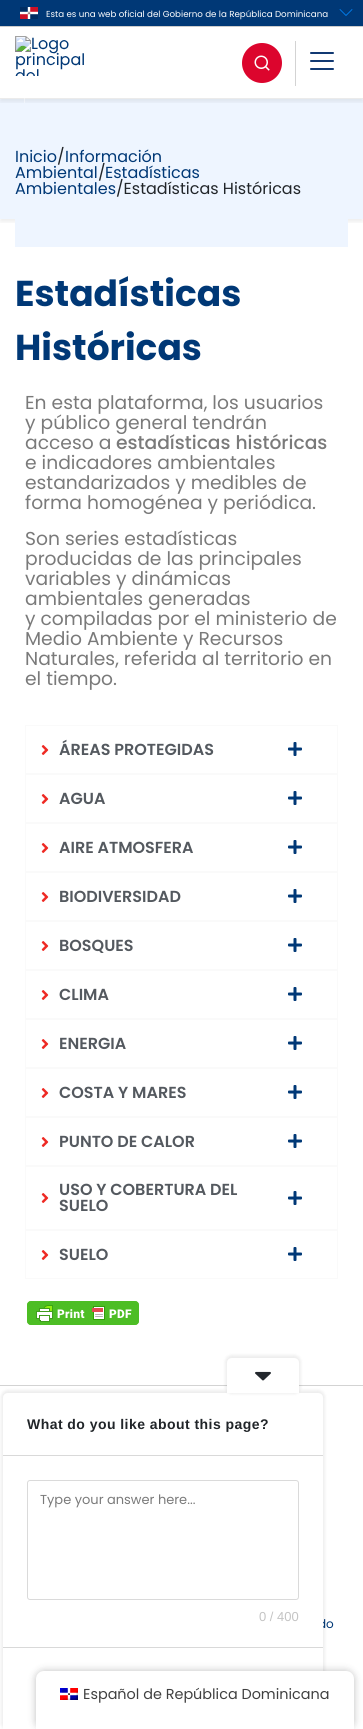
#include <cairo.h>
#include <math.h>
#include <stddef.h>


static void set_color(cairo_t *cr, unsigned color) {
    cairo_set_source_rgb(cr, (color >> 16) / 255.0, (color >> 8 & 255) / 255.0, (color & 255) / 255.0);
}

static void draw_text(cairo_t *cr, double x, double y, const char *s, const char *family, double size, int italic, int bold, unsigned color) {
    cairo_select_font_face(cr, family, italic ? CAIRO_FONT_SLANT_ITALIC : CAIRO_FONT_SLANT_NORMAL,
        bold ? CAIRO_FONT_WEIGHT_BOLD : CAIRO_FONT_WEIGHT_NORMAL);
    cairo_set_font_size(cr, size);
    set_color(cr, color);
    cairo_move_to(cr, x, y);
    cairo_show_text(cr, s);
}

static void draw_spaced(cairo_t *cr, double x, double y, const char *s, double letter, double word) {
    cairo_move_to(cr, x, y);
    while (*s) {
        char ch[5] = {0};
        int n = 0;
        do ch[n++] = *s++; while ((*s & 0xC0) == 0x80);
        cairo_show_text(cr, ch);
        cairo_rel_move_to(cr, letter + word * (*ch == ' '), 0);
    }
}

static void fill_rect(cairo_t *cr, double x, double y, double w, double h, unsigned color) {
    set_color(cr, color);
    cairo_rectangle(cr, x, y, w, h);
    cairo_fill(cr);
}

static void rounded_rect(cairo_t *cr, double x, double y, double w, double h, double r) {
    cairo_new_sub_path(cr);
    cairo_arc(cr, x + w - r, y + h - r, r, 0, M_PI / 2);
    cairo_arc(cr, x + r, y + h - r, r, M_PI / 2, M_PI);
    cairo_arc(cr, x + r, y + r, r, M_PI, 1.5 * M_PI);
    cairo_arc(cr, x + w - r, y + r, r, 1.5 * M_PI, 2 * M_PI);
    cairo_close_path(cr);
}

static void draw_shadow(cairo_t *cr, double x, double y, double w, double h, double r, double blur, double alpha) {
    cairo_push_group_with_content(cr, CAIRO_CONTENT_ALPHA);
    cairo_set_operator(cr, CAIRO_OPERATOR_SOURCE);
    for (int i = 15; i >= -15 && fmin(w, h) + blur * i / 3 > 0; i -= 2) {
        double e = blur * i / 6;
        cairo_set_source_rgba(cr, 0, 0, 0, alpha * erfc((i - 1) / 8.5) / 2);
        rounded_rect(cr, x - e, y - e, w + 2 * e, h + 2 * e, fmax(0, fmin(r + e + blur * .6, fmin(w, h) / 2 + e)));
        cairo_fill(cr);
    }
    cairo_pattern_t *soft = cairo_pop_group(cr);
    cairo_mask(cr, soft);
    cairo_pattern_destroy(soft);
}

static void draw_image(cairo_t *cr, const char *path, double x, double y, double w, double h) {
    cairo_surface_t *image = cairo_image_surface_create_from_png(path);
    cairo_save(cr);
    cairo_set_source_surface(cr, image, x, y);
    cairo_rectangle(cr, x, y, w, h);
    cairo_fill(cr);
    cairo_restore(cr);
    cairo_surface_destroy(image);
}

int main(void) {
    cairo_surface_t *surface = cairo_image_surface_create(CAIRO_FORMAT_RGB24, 363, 1729);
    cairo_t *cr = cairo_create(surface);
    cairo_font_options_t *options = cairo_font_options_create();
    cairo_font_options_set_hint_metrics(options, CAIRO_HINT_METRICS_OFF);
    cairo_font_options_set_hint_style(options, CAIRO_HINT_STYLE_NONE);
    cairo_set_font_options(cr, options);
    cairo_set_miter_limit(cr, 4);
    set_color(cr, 0xFFFFFF);
    cairo_paint(cr);
    fill_rect(cr, 0, 0, 363, 26, 0x003876);
    fill_rect(cr, 0, 26, 363, 1, 0xCCCCCC);
    draw_image(cr, "assets/img1.png", 20, 7, 18, 12);
    draw_text(cr, 46, 17, "Esta es una web oficial del Gobierno de la República Dominicana", "Poppins", 8.7, 0, 0, 0xFFFFFF);
    cairo_new_path(cr);
    cairo_move_to(cr, 352, 9.5);
    cairo_line_to(cr, 346, 15.5);
    cairo_line_to(cr, 340, 9.5);
    set_color(cr, 0x0087FF);
    cairo_set_line_width(cr, 0.8);
    cairo_set_line_cap(cr, CAIRO_LINE_CAP_ROUND);
    cairo_set_line_join(cr, CAIRO_LINE_JOIN_ROUND);
    cairo_stroke(cr);
    cairo_save(cr);
    cairo_rectangle(cr, 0, 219, 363, 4);
    cairo_clip(cr);
    set_color(cr, 0x000000);
    draw_shadow(cr, 0, 30, 363, 192, 0, 2.5, 0.07);
    cairo_restore(cr);
    fill_rect(cr, 0, 99, 363, 120, 0xEEF5FF);
    cairo_save(cr);
    cairo_rectangle(cr, 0, 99, 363, 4);
    cairo_clip(cr);
    set_color(cr, 0x000000);
    draw_shadow(cr, 0, 30, 363, 72, 0, 2.5, 0.07);
    cairo_restore(cr);
    fill_rect(cr, 0, 98, 363, 1, 0xEBEBEB);
    draw_image(cr, "assets/img2.png", 15, 36, 69, 40);
    cairo_set_source_rgba(cr, 1, 1, 1, 0.43);
    cairo_rectangle(cr, 24, 98, 1, 5);
    cairo_fill(cr);
    set_color(cr, 0xDC052D);
    cairo_arc(cr, 262, 63, 20, 0, 2 * M_PI);
    cairo_fill(cr);
    draw_image(cr, "assets/img3.png", 254, 55, 16, 16);
    fill_rect(cr, 295, 41, 1, 45, 0xD3D3D3);
    cairo_new_path(cr);
    cairo_move_to(cr, 311, 53);
    cairo_line_to(cr, 333, 53);
    cairo_move_to(cr, 311, 61);
    cairo_line_to(cr, 333, 61);
    cairo_move_to(cr, 311, 69);
    cairo_line_to(cr, 333, 69);
    set_color(cr, 0x113972);
    cairo_set_line_width(cr, 2);
    cairo_set_line_join(cr, CAIRO_LINE_JOIN_MITER);
    cairo_stroke(cr);
    fill_rect(cr, 15, 219, 333, 28, 0xEEF5FF);
    draw_text(cr, 15, 162, "Inicio", "Poppins", 16, 0, 0, 0x003876);
    draw_text(cr, 57, 162, "/", "Poppins", 16, 0, 0, 0x212529);
    draw_text(cr, 65, 162, "Información", "Poppins", 16, 0, 0, 0x003876);
    draw_text(cr, 15, 178, "Ambiental", "Poppins", 16, 0, 0, 0x003876);
    draw_text(cr, 98, 178, "/", "Poppins", 16, 0, 0, 0x212529);
    draw_text(cr, 105, 178, "Estadísticas", "Poppins", 16, 0, 0, 0x003876);
    draw_text(cr, 15, 194, "Ambientales", "Poppins", 16, 0, 0, 0x003876);
    draw_text(cr, 116, 194, "/Estadísticas Históricas", "Poppins", 16, 0, 0, 0x212529);
    draw_text(cr, 15, 306, "Estadísticas", "Poppins", 36, 0, 1, 0x003876);
    draw_text(cr, 15, 360, "Históricas", "Poppins", 36, 0, 1, 0x003876);
    draw_text(cr, 25, 409, "En esta plataforma, los usuarios", "Poppins", 18.7, 0, 0, 0x7A7A7A);
    draw_text(cr, 25, 429, "y público general tendrán", "Poppins", 18.7, 0, 0, 0x7A7A7A);
    draw_text(cr, 25, 449, "acceso a", "Poppins", 18.7, 0, 0, 0x7A7A7A);
    draw_text(cr, 116, 449, "estadísticas históricas", "Poppins Medium", 18.7, 0, 0, 0x7A7A7A);
    draw_text(cr, 25, 469, "e indicadores ambientales", "Poppins", 18.7, 0, 0, 0x7A7A7A);
    draw_text(cr, 25, 489, "estandarizados y medibles de", "Poppins", 18.7, 0, 0, 0x7A7A7A);
    draw_text(cr, 25, 509, "forma homogénea y periódica.", "Poppins", 18.7, 0, 0, 0x7A7A7A);
    draw_text(cr, 25, 545, "Son series estadísticas", "Poppins", 18.7, 0, 0, 0x7A7A7A);
    draw_text(cr, 25, 565, "producidas de las principales", "Poppins", 18.7, 0, 0, 0x7A7A7A);
    draw_text(cr, 25, 585, "variables y dinámicas", "Poppins", 18.7, 0, 0, 0x7A7A7A);
    draw_text(cr, 25, 605, "ambientales generadas", "Poppins", 18.7, 0, 0, 0x7A7A7A);
    draw_text(cr, 25, 625, "y compiladas por el ministerio de", "Poppins", 18.7, 0, 0, 0x7A7A7A);
    draw_text(cr, 25, 645, "Medio Ambiente y Recursos", "Poppins", 18.7, 0, 0, 0x7A7A7A);
    draw_text(cr, 25, 665, "Naturales, referida al territorio en", "Poppins", 18.7, 0, 0, 0x7A7A7A);
    draw_text(cr, 25, 685, "el tiempo.", "Poppins", 18.7, 0, 0, 0x7A7A7A);
    cairo_rectangle(cr, 25.5, 725.5, 312, 48);
    set_color(cr, 0xFAFAFA);
    cairo_set_line_width(cr, 1);
    cairo_set_line_cap(cr, CAIRO_LINE_CAP_BUTT);
    cairo_stroke(cr);
    draw_image(cr, "assets/img4.png", 41, 745, 8, 10);
    draw_text(cr, 59, 755, "ÁREAS PROTEGIDAS", "Poppins SemiBold", 16, 0, 0, 0x54595F);
    draw_image(cr, "assets/img5.png", 288, 742, 14, 14);
    cairo_rectangle(cr, 25.5, 774.5, 312, 48);
    set_color(cr, 0xFAFAFA);
    cairo_stroke(cr);
    draw_image(cr, "assets/img4.png", 41, 794, 8, 10);
    draw_text(cr, 59, 804, "AGUA", "Poppins SemiBold", 16, 0, 0, 0x54595F);
    draw_image(cr, "assets/img5.png", 288, 791, 14, 14);
    cairo_rectangle(cr, 25.5, 823.5, 312, 48);
    set_color(cr, 0xFAFAFA);
    cairo_stroke(cr);
    draw_image(cr, "assets/img4.png", 41, 843, 8, 10);
    draw_text(cr, 59, 853, "AIRE ATMOSFERA", "Poppins SemiBold", 16, 0, 0, 0x54595F);
    draw_image(cr, "assets/img5.png", 288, 840, 14, 14);
    cairo_rectangle(cr, 25.5, 872.5, 312, 48);
    set_color(cr, 0xFAFAFA);
    cairo_stroke(cr);
    draw_image(cr, "assets/img4.png", 41, 892, 8, 10);
    draw_text(cr, 59, 902, "BIODIVERSIDAD", "Poppins SemiBold", 16, 0, 0, 0x54595F);
    draw_image(cr, "assets/img5.png", 288, 889, 14, 14);
    cairo_rectangle(cr, 25.5, 921.5, 312, 48);
    set_color(cr, 0xFAFAFA);
    cairo_stroke(cr);
    draw_image(cr, "assets/img4.png", 41, 941, 8, 10);
    draw_text(cr, 59, 951, "BOSQUES", "Poppins SemiBold", 16, 0, 0, 0x54595F);
    draw_image(cr, "assets/img5.png", 288, 938, 14, 14);
    cairo_rectangle(cr, 25.5, 970.5, 312, 48);
    set_color(cr, 0xFAFAFA);
    cairo_stroke(cr);
    draw_image(cr, "assets/img4.png", 41, 990, 8, 10);
    draw_text(cr, 59, 1000, "CLIMA", "Poppins SemiBold", 16, 0, 0, 0x54595F);
    draw_image(cr, "assets/img5.png", 288, 987, 14, 14);
    cairo_rectangle(cr, 25.5, 1019.5, 312, 48);
    set_color(cr, 0xFAFAFA);
    cairo_stroke(cr);
    draw_image(cr, "assets/img4.png", 41, 1039, 8, 10);
    draw_text(cr, 59, 1049, "ENERGIA", "Poppins SemiBold", 16, 0, 0, 0x54595F);
    draw_image(cr, "assets/img5.png", 288, 1036, 14, 14);
    cairo_rectangle(cr, 25.5, 1068.5, 312, 48);
    set_color(cr, 0xFAFAFA);
    cairo_stroke(cr);
    draw_image(cr, "assets/img4.png", 41, 1088, 8, 10);
    draw_text(cr, 59, 1098, "COSTA Y MARES", "Poppins SemiBold", 16, 0, 0, 0x54595F);
    draw_image(cr, "assets/img5.png", 288, 1085, 14, 14);
    cairo_rectangle(cr, 25.5, 1117.5, 312, 48);
    set_color(cr, 0xFAFAFA);
    cairo_stroke(cr);
    draw_image(cr, "assets/img4.png", 41, 1137, 8, 10);
    draw_text(cr, 59, 1147, "PUNTO DE CALOR", "Poppins SemiBold", 16, 0, 0, 0x54595F);
    draw_image(cr, "assets/img5.png", 288, 1134, 14, 14);
    cairo_rectangle(cr, 25.5, 1166.5, 312, 63);
    set_color(cr, 0xFAFAFA);
    cairo_stroke(cr);
    draw_image(cr, "assets/img4.png", 41, 1193, 8, 10);
    draw_text(cr, 59, 1195, "USO Y COBERTURA DEL", "Poppins SemiBold", 16, 0, 0, 0x54595F);
    draw_text(cr, 59, 1211, "SUELO", "Poppins SemiBold", 16, 0, 0, 0x54595F);
    draw_image(cr, "assets/img5.png", 288, 1191, 14, 14);
    cairo_rectangle(cr, 25.5, 1230.5, 312, 48);
    set_color(cr, 0xFAFAFA);
    cairo_stroke(cr);
    draw_image(cr, "assets/img4.png", 41, 1250, 8, 10);
    draw_text(cr, 59, 1260, "SUELO", "Poppins SemiBold", 16, 0, 0, 0x54595F);
    draw_image(cr, "assets/img5.png", 288, 1247, 14, 14);
    draw_image(cr, "assets/img6.png", 27, 1301, 112, 24);
    fill_rect(cr, 0, 1385, 363, 1, 0xD3D3D3);
    draw_text(cr, 318, 1628, "do", "Poppins", 12, 0, 0, 0x003876);
    set_color(cr, 0x000000);
    draw_shadow(cr, 1, 1390, 324, 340, 7, 1.5, 0.07);
    set_color(cr, 0xFFFFFF);
    cairo_new_path(cr);
    cairo_move_to(cr, 8, 1393);
    cairo_line_to(cr, 318, 1393);
    cairo_curve_to(cr, 321, 1393, 323, 1395, 323, 1398);
    cairo_line_to(cr, 323, 1729);
    cairo_line_to(cr, 3, 1729);
    cairo_line_to(cr, 3, 1398);
    cairo_curve_to(cr, 3, 1395, 5, 1393, 8, 1393);
    cairo_close_path(cr);
    cairo_fill(cr);
    set_color(cr, 0x000000);
    draw_shadow(cr, 225, 1355, 76, 39, 7, 1.5, 0.07);
    set_color(cr, 0xFFFFFF);
    cairo_new_path(cr);
    cairo_move_to(cr, 232, 1358);
    cairo_line_to(cr, 294, 1358);
    cairo_curve_to(cr, 297, 1358, 299, 1360, 299, 1363);
    cairo_line_to(cr, 299, 1393);
    cairo_line_to(cr, 227, 1393);
    cairo_line_to(cr, 227, 1363);
    cairo_curve_to(cr, 227, 1360, 229, 1358, 232, 1358);
    cairo_close_path(cr);
    cairo_fill(cr);
    draw_image(cr, "assets/img7.png", 255, 1371, 16, 10);
    cairo_select_font_face(cr, "Liberation Sans", CAIRO_FONT_SLANT_NORMAL, CAIRO_FONT_WEIGHT_BOLD);
    cairo_set_font_size(cr, 14);
    set_color(cr, 0x212529);
    draw_spaced(cr, 27, 1429, "What do you like about this page?", 0.45, 0);
    fill_rect(cr, 3, 1455, 320, 1, 0xD9D9D9);
    fill_rect(cr, 3, 1647, 320, 1, 0xD9D9D9);
    rounded_rect(cr, 27.5, 1480.5, 271, 119, 2.5);
    set_color(cr, 0xDADADA);
    cairo_stroke(cr);
    draw_text(cr, 40, 1504, "Type your answer here...", "Poppins", 13, 0, 0, 0x7A7A7A);
    draw_text(cr, 259, 1621, "0 / 400", "Liberation Sans", 13, 0, 0, 0xC4C4C4);
    set_color(cr, 0x000000);
    draw_shadow(cr, 36, 1671, 318, 58, 8, 4, 0.25);
    set_color(cr, 0xFFFFFF);
    cairo_new_path(cr);
    cairo_move_to(cr, 44, 1671);
    cairo_line_to(cr, 346, 1671);
    cairo_curve_to(cr, 350.5, 1671, 354, 1674.5, 354, 1679);
    cairo_line_to(cr, 354, 1729);
    cairo_line_to(cr, 36, 1729);
    cairo_line_to(cr, 36, 1679);
    cairo_curve_to(cr, 36, 1674.5, 39.5, 1671, 44, 1671);
    cairo_close_path(cr);
    cairo_fill(cr);
    draw_image(cr, "assets/img8.png", 60, 1688, 18, 12);
    draw_text(cr, 83, 1699, "Español de República Dominicana", "Poppins", 14.4, 0, 0, 0x404040);
    cairo_surface_write_to_png(surface, "output.png");
    cairo_font_options_destroy(options);
    cairo_destroy(cr);
    cairo_surface_destroy(surface);
    return 0;
}
